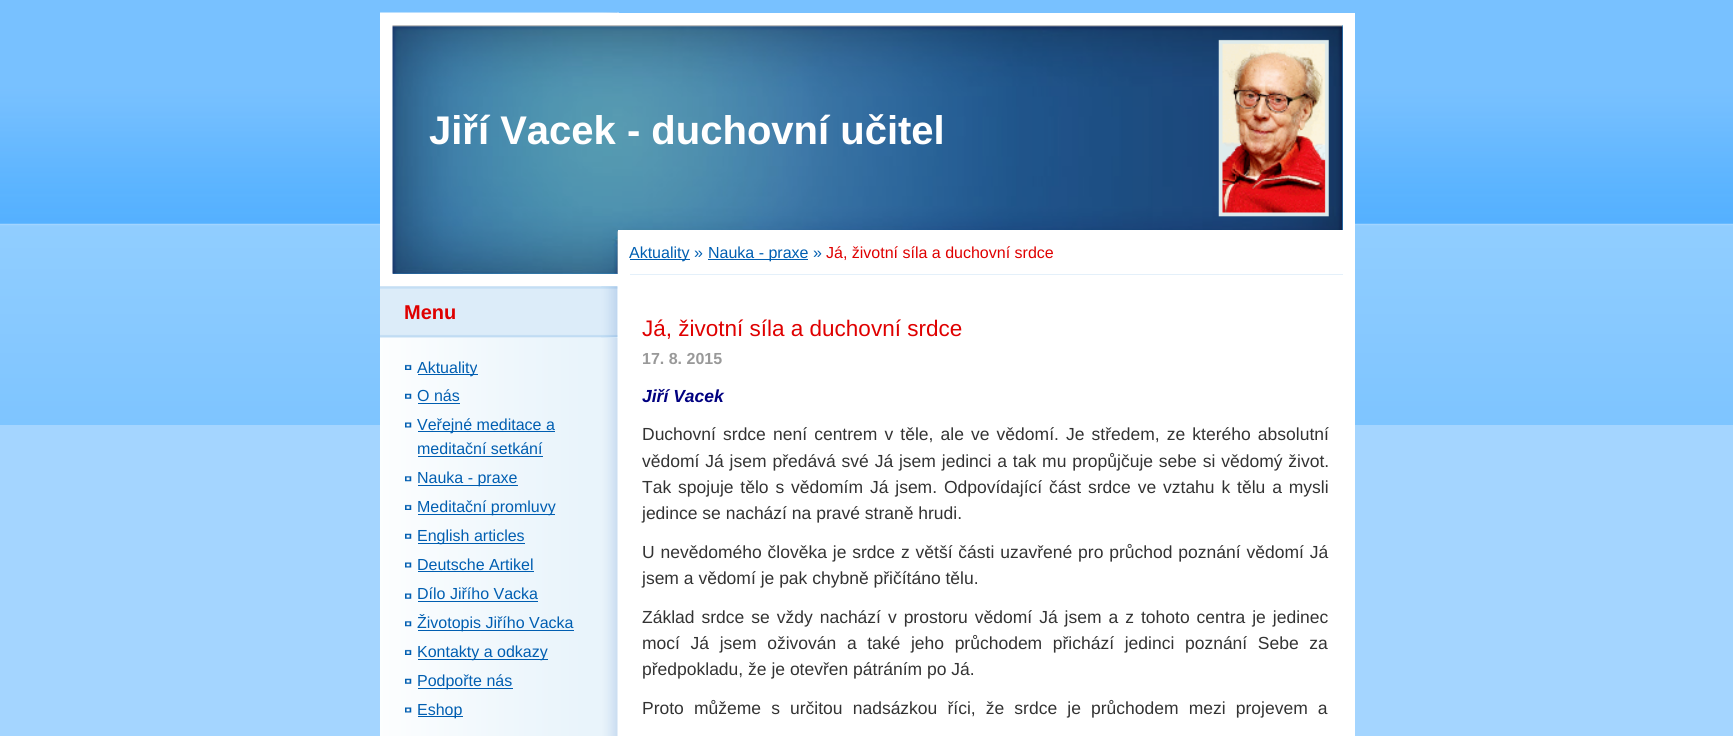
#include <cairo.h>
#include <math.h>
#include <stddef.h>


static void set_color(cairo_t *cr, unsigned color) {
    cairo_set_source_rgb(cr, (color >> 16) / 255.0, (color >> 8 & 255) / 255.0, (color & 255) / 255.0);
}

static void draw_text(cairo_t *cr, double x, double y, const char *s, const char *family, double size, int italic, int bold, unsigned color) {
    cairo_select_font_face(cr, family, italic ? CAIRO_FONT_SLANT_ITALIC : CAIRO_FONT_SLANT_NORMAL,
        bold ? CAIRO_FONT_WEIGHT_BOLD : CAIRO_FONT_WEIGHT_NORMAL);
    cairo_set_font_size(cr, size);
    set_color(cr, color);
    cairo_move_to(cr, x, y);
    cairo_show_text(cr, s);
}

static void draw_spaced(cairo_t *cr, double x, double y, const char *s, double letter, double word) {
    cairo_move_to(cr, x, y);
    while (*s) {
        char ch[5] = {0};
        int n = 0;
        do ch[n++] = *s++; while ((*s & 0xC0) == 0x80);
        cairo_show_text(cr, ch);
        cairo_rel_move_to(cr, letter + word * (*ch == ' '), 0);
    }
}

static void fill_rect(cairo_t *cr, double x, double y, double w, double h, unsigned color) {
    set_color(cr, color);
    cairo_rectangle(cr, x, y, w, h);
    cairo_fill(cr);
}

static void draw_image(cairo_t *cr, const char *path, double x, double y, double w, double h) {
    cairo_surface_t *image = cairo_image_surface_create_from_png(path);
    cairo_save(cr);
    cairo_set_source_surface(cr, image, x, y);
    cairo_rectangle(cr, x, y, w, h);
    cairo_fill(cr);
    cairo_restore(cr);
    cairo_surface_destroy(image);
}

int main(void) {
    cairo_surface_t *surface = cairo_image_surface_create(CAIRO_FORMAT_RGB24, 1733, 736);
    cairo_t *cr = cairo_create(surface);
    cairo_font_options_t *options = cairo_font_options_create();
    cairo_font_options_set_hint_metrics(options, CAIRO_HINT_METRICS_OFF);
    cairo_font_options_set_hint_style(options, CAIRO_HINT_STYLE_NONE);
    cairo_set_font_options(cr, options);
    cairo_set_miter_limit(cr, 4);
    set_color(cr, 0xA4D5FF);
    cairo_paint(cr);
    draw_image(cr, "assets/img1.png", 0, 0, 1733, 425);
    draw_image(cr, "assets/img2.png", 380, 12, 239, 724);
    fill_rect(cr, 380, 13, 975, 273, 0xFFFFFF);
    fill_rect(cr, 393, 25, 950, 249, 0x3AA8F4);
    draw_image(cr, "assets/img3.png", 392, 25, 951, 249);
    draw_text(cr, 429, 144, "Jiří Vacek - duchovní učitel", "Liberation Sans", 40, 0, 1, 0xFFFFFF);
    fill_rect(cr, 380, 286, 238, 52, 0xFFFFFF);
    draw_image(cr, "assets/img4.png", 380, 286, 238, 52);
    draw_text(cr, 404, 319, "Menu", "Liberation Sans", 20, 0, 1, 0xDF0000);
    draw_image(cr, "assets/img5.png", 601, 286, 17, 52);
    draw_image(cr, "assets/img6.png", 380, 338, 225, 398);
    draw_image(cr, "assets/img7.png", 405, 364, 7, 6);
    fill_rect(cr, 418, 374, 60, 1, 0x005EB1);
    draw_text(cr, 417, 373, "Aktuality", "Liberation Sans", 16, 0, 0, 0x005EB1);
    draw_image(cr, "assets/img8.png", 405, 393, 7, 6);
    draw_text(cr, 417, 401, "O nás", "Liberation Sans", 16, 0, 0, 0x005EB1);
    fill_rect(cr, 418, 403, 42, 1, 0x005EB1);
    draw_image(cr, "assets/img9.png", 405, 422, 7, 6);
    fill_rect(cr, 418, 431, 137, 1, 0x005EB1);
    draw_text(cr, 417, 430, "Veřejné meditace a", "Liberation Sans", 16, 0, 0, 0x005EB1);
    draw_text(cr, 417, 454, "meditační setkání", "Liberation Sans", 16, 0, 0, 0x005EB1);
    fill_rect(cr, 418, 456, 125, 1, 0x005EB1);
    draw_image(cr, "assets/img10.png", 405, 476, 7, 6);
    fill_rect(cr, 418, 485, 100, 1, 0x005EB1);
    draw_text(cr, 417, 483, "Nauka - praxe", "Liberation Sans", 16, 0, 0, 0x005EB1);
    draw_image(cr, "assets/img7.png", 405, 504, 7, 6);
    fill_rect(cr, 418, 514, 137, 1, 0x005EB1);
    draw_text(cr, 417, 512, "Meditační promluvy", "Liberation Sans", 16, 0, 0, 0x005EB1);
    draw_image(cr, "assets/img8.png", 405, 533, 7, 6);
    fill_rect(cr, 418, 543, 107, 1, 0x005EB1);
    draw_text(cr, 417, 541, "English articles", "Liberation Sans", 16, 0, 0, 0x005EB1);
    draw_image(cr, "assets/img9.png", 405, 562, 7, 6);
    draw_text(cr, 417, 570, "Deutsche Artikel", "Liberation Sans", 16, 0, 0, 0x005EB1);
    fill_rect(cr, 418, 571, 116, 1, 0x005EB1);
    draw_image(cr, "assets/img11.png", 405, 593, 7, 6);
    draw_text(cr, 417, 599, "Dílo Jiřího Vacka", "Liberation Sans", 16, 0, 0, 0x005EB1);
    fill_rect(cr, 418, 601, 120, 1, 0x005EB1);
    draw_image(cr, "assets/img10.png", 405, 621, 7, 6);
    fill_rect(cr, 418, 630, 156, 1, 0x005EB1);
    draw_text(cr, 417, 628, "Životopis Jiřího Vacka", "Liberation Sans", 16, 0, 0, 0x005EB1);
    draw_image(cr, "assets/img7.png", 405, 649, 7, 6);
    fill_rect(cr, 418, 659, 130, 1, 0x005EB1);
    draw_text(cr, 417, 657, "Kontakty a odkazy", "Liberation Sans", 16, 0, 0, 0x005EB1);
    draw_image(cr, "assets/img8.png", 405, 678, 7, 6);
    fill_rect(cr, 418, 688, 95, 1, 0x005EB1);
    draw_text(cr, 417, 686, "Podpořte nás", "Liberation Sans", 16, 0, 0, 0x005EB1);
    draw_image(cr, "assets/img9.png", 405, 707, 7, 6);
    fill_rect(cr, 418, 716, 45, 1, 0x005EB1);
    draw_text(cr, 417, 715, "Eshop", "Liberation Sans", 16, 0, 0, 0x005EB1);
    fill_rect(cr, 618, 230, 737, 506, 0xFFFFFF);
    fill_rect(cr, 630, 274, 713, 1, 0xE4F0FA);
    fill_rect(cr, 630, 259, 60, 1, 0x005EB1);
    draw_text(cr, 629, 258, "Aktuality »", "Liberation Sans", 16, 0, 0, 0x005EB1);
    fill_rect(cr, 708, 259, 100, 1, 0x005EB1);
    draw_text(cr, 708, 258, "Nauka - praxe »", "Liberation Sans", 16, 0, 0, 0x005EB1);
    draw_text(cr, 826, 258, "Já, životní síla a duchovní srdce", "Liberation Sans", 16, 0, 0, 0xDF0000);
    draw_text(cr, 642, 336, "Já, životní síla a duchovní srdce", "Liberation Sans", 22.5, 0, 0, 0xDF0000);
    draw_text(cr, 642, 364, "17. 8. 2015", "Liberation Sans", 16, 0, 1, 0x999999);
    draw_text(cr, 642, 402, "Jiří Vacek", "Liberation Sans", 17.5, 1, 1, 0x000080);
    cairo_select_font_face(cr, "Liberation Sans", CAIRO_FONT_SLANT_NORMAL, CAIRO_FONT_WEIGHT_NORMAL);
    set_color(cr, 0x333333);
    draw_spaced(cr, 642, 440, "Duchovní srdce není centrem v těle, ale ve vědomí. Je středem, ze kterého absolutní", 0, 2.25);
    draw_spaced(cr, 642, 467, "vědomí Já jsem předává své Já jsem jedinci a tak mu propůjčuje sebe si vědomý život.", 0, 1);
    draw_spaced(cr, 642, 493, "Tak spojuje tělo s vědomím Já jsem. Odpovídající část srdce ve vztahu k tělu a mysli", 0, 2);
    draw_text(cr, 642, 519, "jedince se nachází na pravé straně hrudi.", "Liberation Sans", 17.5, 0, 0, 0x333333);
    draw_spaced(cr, 642, 558, "U nevědomého člověka je srdce z větší části uzavřené pro průchod poznání vědomí Já", 0, 1);
    draw_text(cr, 642, 584, "jsem a vědomí je pak chybně přičítáno tělu.", "Liberation Sans", 17.5, 0, 0, 0x333333);
    draw_spaced(cr, 642, 623, "Základ srdce se vždy nachází v prostoru vědomí Já jsem a z tohoto centra je jedinec", 0, 2.1);
    draw_spaced(cr, 642, 649, "mocí Já jsem oživován a také jeho průchodem přichází jedinci poznání Sebe za", 0, 5.75);
    draw_text(cr, 642, 675, "předpokladu, že je otevřen pátráním po Já.", "Liberation Sans", 17.5, 0, 0, 0x333333);
    draw_spaced(cr, 642, 714, "Proto můžeme s určitou nadsázkou říci, že srdce je průchodem mezi projevem a", 0, 5.25);
    cairo_surface_write_to_png(surface, "output.png");
    cairo_font_options_destroy(options);
    cairo_destroy(cr);
    cairo_surface_destroy(surface);
    return 0;
}
